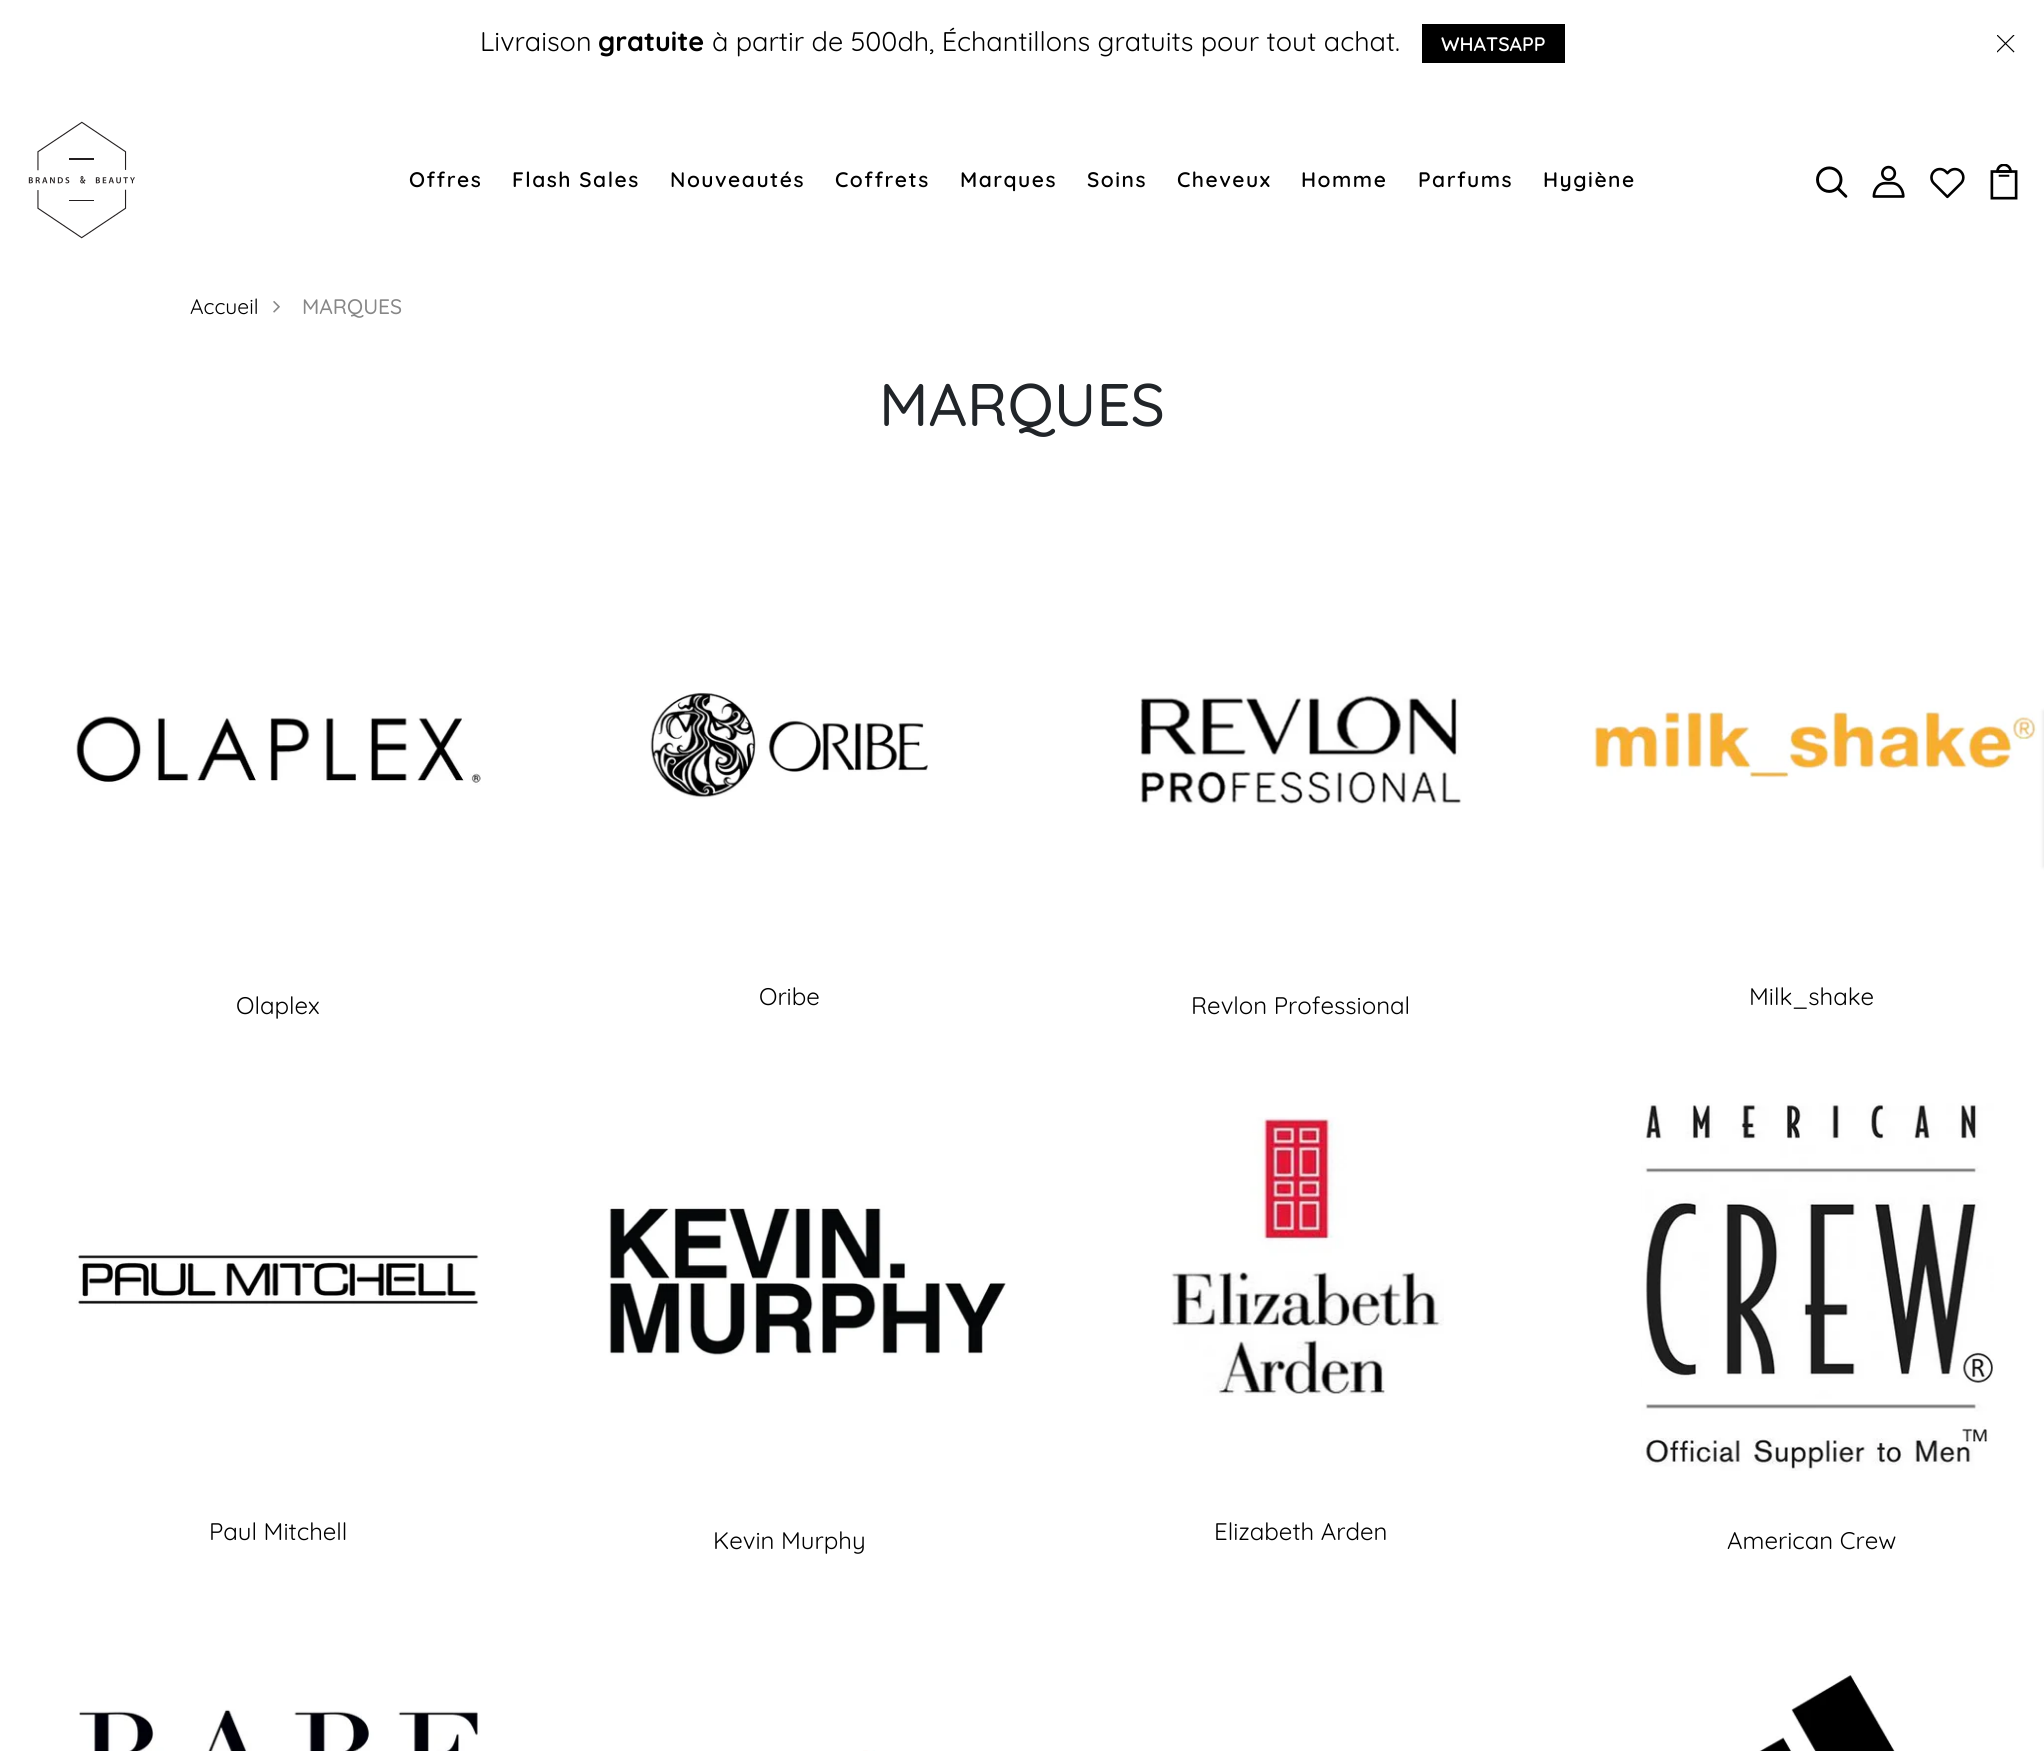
#include <cairo.h>
#include <math.h>
#include <stddef.h>


static void set_color(cairo_t *cr, unsigned color) {
    cairo_set_source_rgb(cr, (color >> 16) / 255.0, (color >> 8 & 255) / 255.0, (color & 255) / 255.0);
}

static void draw_text(cairo_t *cr, double x, double y, const char *s, const char *family, double size, int italic, int bold, unsigned color) {
    cairo_select_font_face(cr, family, italic ? CAIRO_FONT_SLANT_ITALIC : CAIRO_FONT_SLANT_NORMAL,
        bold ? CAIRO_FONT_WEIGHT_BOLD : CAIRO_FONT_WEIGHT_NORMAL);
    cairo_set_font_size(cr, size);
    set_color(cr, color);
    cairo_move_to(cr, x, y);
    cairo_show_text(cr, s);
}

static void draw_spaced(cairo_t *cr, double x, double y, const char *s, double letter, double word) {
    cairo_move_to(cr, x, y);
    while (*s) {
        char ch[5] = {0};
        int n = 0;
        do ch[n++] = *s++; while ((*s & 0xC0) == 0x80);
        cairo_show_text(cr, ch);
        cairo_rel_move_to(cr, letter + word * (*ch == ' '), 0);
    }
}

static void fill_rect(cairo_t *cr, double x, double y, double w, double h, unsigned color) {
    set_color(cr, color);
    cairo_rectangle(cr, x, y, w, h);
    cairo_fill(cr);
}

static void rounded_rect(cairo_t *cr, double x, double y, double w, double h, double r) {
    cairo_new_sub_path(cr);
    cairo_arc(cr, x + w - r, y + h - r, r, 0, M_PI / 2);
    cairo_arc(cr, x + r, y + h - r, r, M_PI / 2, M_PI);
    cairo_arc(cr, x + r, y + r, r, M_PI, 1.5 * M_PI);
    cairo_arc(cr, x + w - r, y + r, r, 1.5 * M_PI, 2 * M_PI);
    cairo_close_path(cr);
}

static void draw_shadow(cairo_t *cr, double x, double y, double w, double h, double r, double blur, double alpha) {
    cairo_push_group_with_content(cr, CAIRO_CONTENT_ALPHA);
    cairo_set_operator(cr, CAIRO_OPERATOR_SOURCE);
    for (int i = 15; i >= -15 && fmin(w, h) + blur * i / 3 > 0; i -= 2) {
        double e = blur * i / 6;
        cairo_set_source_rgba(cr, 0, 0, 0, alpha * erfc((i - 1) / 8.5) / 2);
        rounded_rect(cr, x - e, y - e, w + 2 * e, h + 2 * e, fmax(0, fmin(r + e + blur * .6, fmin(w, h) / 2 + e)));
        cairo_fill(cr);
    }
    cairo_pattern_t *soft = cairo_pop_group(cr);
    cairo_mask(cr, soft);
    cairo_pattern_destroy(soft);
}

static void draw_image(cairo_t *cr, const char *path, double x, double y, double w, double h) {
    cairo_surface_t *image = cairo_image_surface_create_from_png(path);
    cairo_save(cr);
    cairo_set_source_surface(cr, image, x, y);
    cairo_rectangle(cr, x, y, w, h);
    cairo_fill(cr);
    cairo_restore(cr);
    cairo_surface_destroy(image);
}

int main(void) {
    cairo_surface_t *surface = cairo_image_surface_create(CAIRO_FORMAT_RGB24, 2044, 1751);
    cairo_t *cr = cairo_create(surface);
    cairo_font_options_t *options = cairo_font_options_create();
    cairo_font_options_set_hint_metrics(options, CAIRO_HINT_METRICS_OFF);
    cairo_font_options_set_hint_style(options, CAIRO_HINT_STYLE_NONE);
    cairo_set_font_options(cr, options);
    cairo_set_miter_limit(cr, 4);
    set_color(cr, 0xFFFFFF);
    cairo_paint(cr);
    draw_text(cr, 480, 51, "Livraison", "Quicksand", 27, 0, 0, 0x000000);
    draw_text(cr, 598, 51, "gratuite", "Quicksand", 27, 0, 1, 0x000000);
    draw_text(cr, 712, 51, "à partir de 500dh, Échantillons gratuits pour tout achat.", "Quicksand", 27, 0, 0, 0x000000);
    fill_rect(cr, 1422, 24, 143, 39, 0x000000);
    draw_text(cr, 1441, 51, "WHATSAPP", "Quicksand SemiBold", 19.5, 0, 0, 0xFFFFFF);
    draw_image(cr, "assets/img1.png", 1997, 35, 18, 18);
    draw_image(cr, "assets/img2.png", 28, 121, 107, 118);
    cairo_set_font_size(cr, 21);
    set_color(cr, 0x000000);
    draw_spaced(cr, 409, 187, "Offres", 1.5, 0);
    draw_spaced(cr, 512, 187, "Flash Sales", 1.5, 0);
    draw_spaced(cr, 670, 187, "Nouveautés", 1.5, 0);
    draw_spaced(cr, 835, 187, "Coffrets", 1.5, 0);
    draw_spaced(cr, 960, 187, "Marques", 1.5, 0);
    draw_spaced(cr, 1087, 187, "Soins", 1.5, 0);
    draw_spaced(cr, 1177, 187, "Cheveux", 1.5, 0);
    draw_spaced(cr, 1301, 187, "Homme", 1.5, 0);
    draw_spaced(cr, 1418, 187, "Parfums", 1.5, 0);
    draw_spaced(cr, 1543, 187, "Hygiène", 1.5, 0);
    draw_image(cr, "assets/img3.png", 1816, 166, 32, 32);
    draw_image(cr, "assets/img4.png", 1872, 165, 33, 33);
    draw_image(cr, "assets/img5.png", 1930, 167, 35, 32);
    draw_image(cr, "assets/img6.png", 1990, 164, 28, 36);
    draw_text(cr, 190, 314, "Accueil", "Quicksand", 21, 0, 0, 0x000000);
    draw_image(cr, "assets/img7.png", 273, 301, 7, 12);
    draw_text(cr, 302, 314, "MARQUES", "Quicksand Medium", 21, 0, 0, 0x878787);
    draw_text(cr, 879, 426, "MARQUES", "Quicksand Medium", 60, 0, 0, 0x212529);
    draw_image(cr, "assets/img8.png", 76, 716, 405, 69);
    draw_text(cr, 236, 1014, "Olaplex", "Quicksand", 24, 0, 0, 0x000000);
    draw_image(cr, "assets/img9.png", 650, 692, 278, 107);
    draw_text(cr, 759, 1005, "Oribe", "Quicksand", 24, 0, 0, 0x000000);
    draw_image(cr, "assets/img10.png", 1140, 694, 322, 111);
    draw_text(cr, 1191, 1014, "Revlon Professional", "Quicksand", 24, 0, 0, 0x000000);
    draw_image(cr, "assets/img11.png", 1594, 707, 443, 71);
    draw_text(cr, 1749, 1005, "Milk_shake", "Quicksand", 24, 0, 0, 0x000000);
    draw_image(cr, "assets/img12.png", 76, 1255, 403, 51);
    draw_text(cr, 209, 1540, "Paul Mitchell", "Quicksand", 24, 0, 0, 0x000000);
    draw_image(cr, "assets/img13.png", 608, 1205, 398, 151);
    draw_text(cr, 713, 1549, "Kevin Murphy", "Quicksand", 24, 0, 0, 0x000000);
    draw_image(cr, "assets/img14.png", 1171, 1117, 273, 279);
    draw_text(cr, 1214, 1540, "Elizabeth Arden", "Quicksand", 24, 0, 0, 0x000000);
    draw_image(cr, "assets/img15.png", 1641, 1103, 353, 368);
    draw_text(cr, 1727, 1549, "American Crew", "Quicksand", 24, 0, 0, 0x000000);
    draw_image(cr, "assets/img16.png", 79, 1709, 401, 42);
    draw_image(cr, "assets/img17.png", 863, 1750, 12, 1);
    draw_image(cr, "assets/img18.png", 1759, 1674, 136, 77);
    set_color(cr, 0x000000);
    draw_shadow(cr, 2043, 711, 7, 156, 0, 2, 0.1);
    cairo_surface_write_to_png(surface, "output.png");
    cairo_font_options_destroy(options);
    cairo_destroy(cr);
    cairo_surface_destroy(surface);
    return 0;
}
